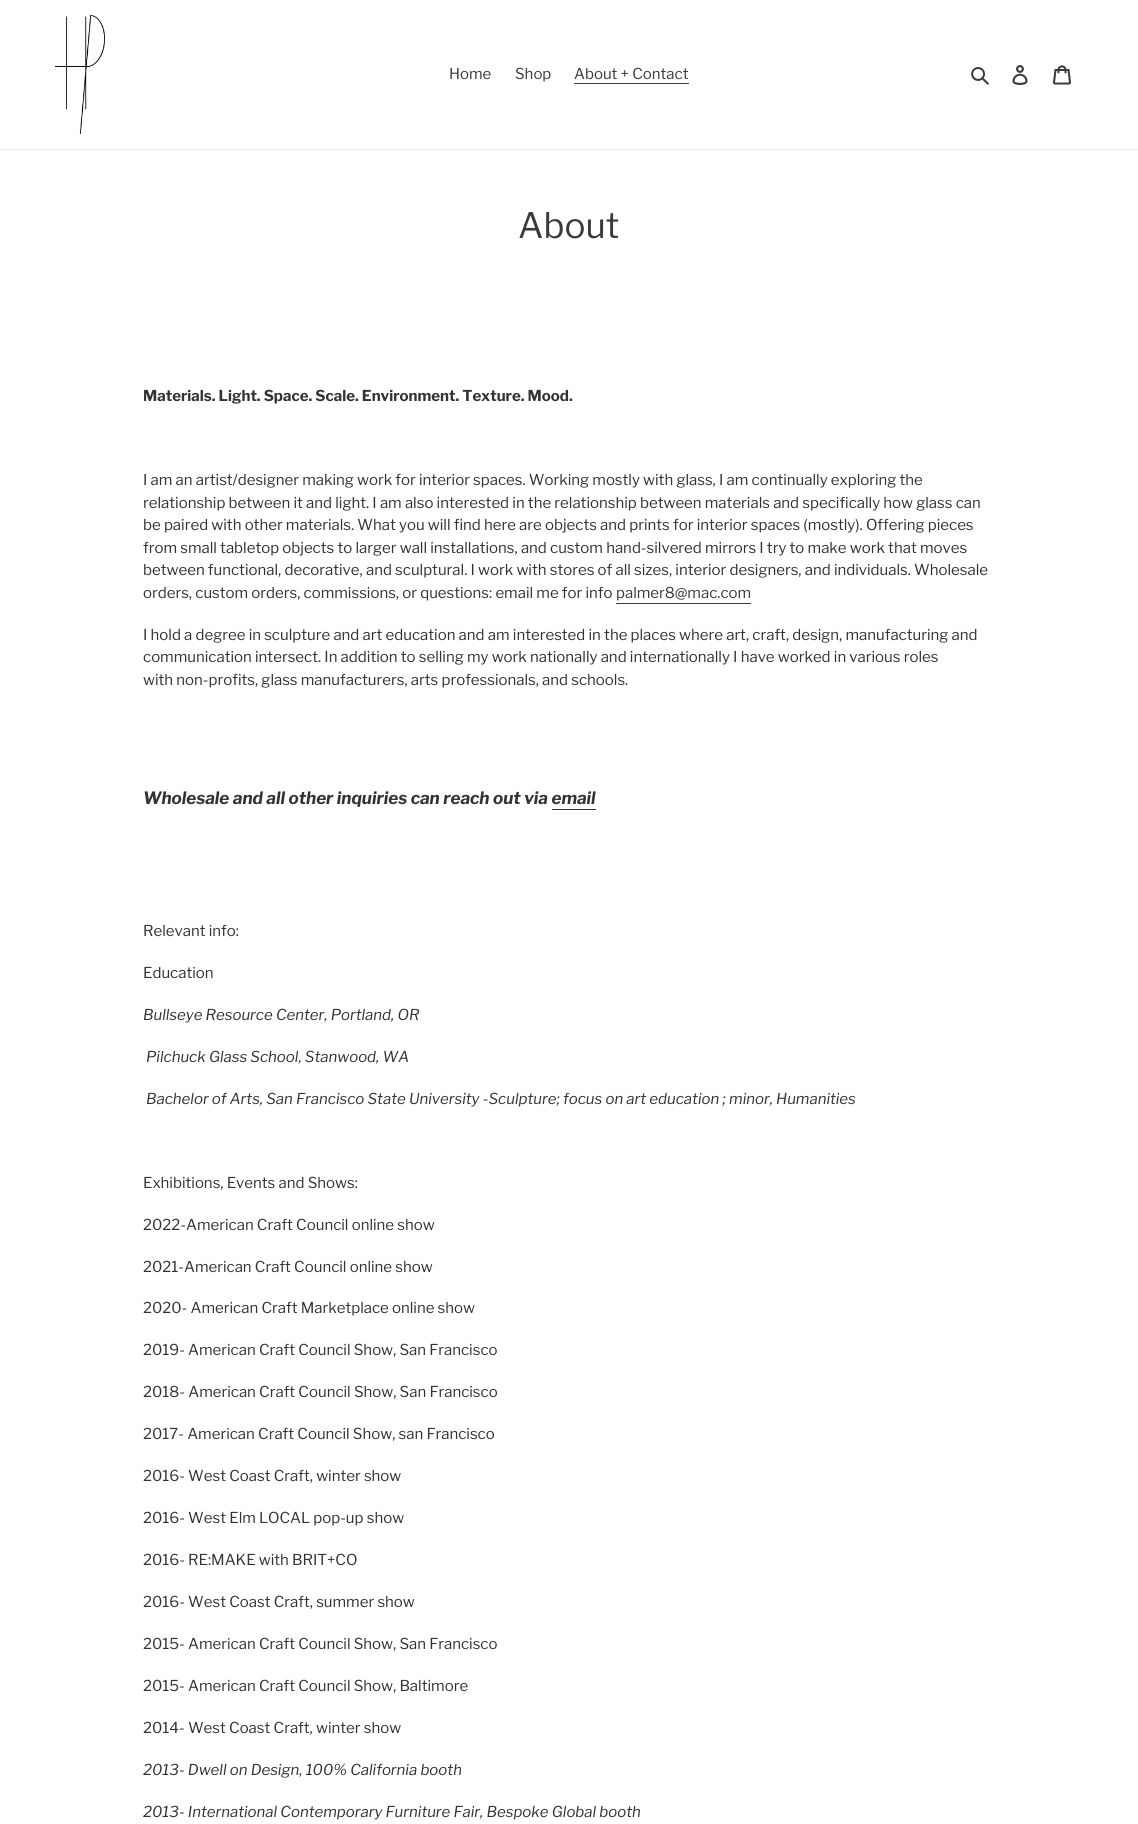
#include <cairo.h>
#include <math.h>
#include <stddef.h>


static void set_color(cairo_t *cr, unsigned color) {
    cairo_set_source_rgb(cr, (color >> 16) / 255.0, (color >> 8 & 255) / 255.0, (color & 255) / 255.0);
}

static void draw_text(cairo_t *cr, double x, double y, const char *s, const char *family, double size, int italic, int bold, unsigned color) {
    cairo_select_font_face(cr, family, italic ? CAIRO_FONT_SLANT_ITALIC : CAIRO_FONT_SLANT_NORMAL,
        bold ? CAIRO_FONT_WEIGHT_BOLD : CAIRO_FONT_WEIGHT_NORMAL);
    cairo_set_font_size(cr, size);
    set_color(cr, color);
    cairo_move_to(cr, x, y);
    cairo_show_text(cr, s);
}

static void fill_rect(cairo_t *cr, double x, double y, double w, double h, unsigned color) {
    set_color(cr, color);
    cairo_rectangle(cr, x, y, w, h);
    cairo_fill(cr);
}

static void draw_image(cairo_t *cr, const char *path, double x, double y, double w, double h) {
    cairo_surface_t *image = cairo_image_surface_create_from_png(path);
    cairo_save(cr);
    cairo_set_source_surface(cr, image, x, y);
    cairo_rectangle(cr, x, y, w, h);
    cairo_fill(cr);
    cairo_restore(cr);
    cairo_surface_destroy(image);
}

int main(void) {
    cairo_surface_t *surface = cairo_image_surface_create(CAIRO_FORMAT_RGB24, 1138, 1824);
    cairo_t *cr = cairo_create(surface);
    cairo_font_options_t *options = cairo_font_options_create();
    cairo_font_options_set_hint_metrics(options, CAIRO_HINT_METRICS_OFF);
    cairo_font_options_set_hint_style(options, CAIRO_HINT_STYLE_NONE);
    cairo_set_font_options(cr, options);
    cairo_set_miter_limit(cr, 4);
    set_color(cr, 0xFFFFFF);
    cairo_paint(cr);
    fill_rect(cr, 0, 149, 1138, 1, 0xEBEBEB);
    draw_image(cr, "assets/img1.png", 55, 15, 50, 119);
    draw_text(cr, 449, 79, "Home", "Libre Franklin", 15, 0, 0, 0x3A3A3A);
    draw_text(cr, 515, 79, "Shop", "Libre Franklin", 15, 0, 0, 0x3A3A3A);
    draw_text(cr, 574, 79, "About + Contact", "Libre Franklin", 15, 0, 0, 0x3A3A3A);
    fill_rect(cr, 574, 83, 115, 1, 0x3A3A3A);
    draw_image(cr, "assets/img2.png", 971, 67, 18, 18);
    draw_image(cr, "assets/img3.png", 1012, 65, 16, 20);
    draw_image(cr, "assets/img4.png", 1053, 65, 18, 20);
    draw_text(cr, 518, 238, "About", "Libre Franklin", 35, 0, 0, 0x3A3A3A);
    draw_text(cr, 143, 401, "Materials. Light. Space. Scale. Environment. Texture. Mood.", "Libre Franklin", 15, 0, 1, 0x333232);
    draw_text(cr, 143, 485, "I am an artist/designer making work for interior spaces. Working mostly with glass, I am continually exploring the", "Libre Franklin", 15, 0, 0, 0x333232);
    draw_text(cr, 143, 508, "relationship between it and light. I am also interested in the relationship between materials and specifically how glass can", "Libre Franklin", 15, 0, 0, 0x333232);
    draw_text(cr, 143, 530, "be paired with other materials. What you will find here are objects and prints for interior spaces (mostly). Offering pieces", "Libre Franklin", 15, 0, 0, 0x333232);
    draw_text(cr, 143, 553, "from small tabletop objects to larger wall installations, and custom hand-silvered mirrors I try to make work that moves", "Libre Franklin", 15, 0, 0, 0x333232);
    draw_text(cr, 143, 575, "between functional, decorative, and sculptural. I work with stores of all sizes, interior designers, and individuals. Wholesale", "Libre Franklin", 15, 0, 0, 0x333232);
    draw_text(cr, 143, 598, "orders, custom orders, commissions, or questions: email me for info", "Libre Franklin", 15, 0, 0, 0x333232);
    draw_text(cr, 616, 598, "palmer8@mac.com", "Libre Franklin", 15, 0, 0, 0x3A3A3A);
    fill_rect(cr, 616, 603, 135, 1, 0x3A3A3A);
    draw_text(cr, 143, 640, "I hold a degree in sculpture and art education and am interested in the places where art, craft, design, manufacturing and", "Libre Franklin", 15, 0, 0, 0x333232);
    draw_text(cr, 143, 662, "communication intersect. In addition to selling my work nationally and internationally I have worked in various roles", "Libre Franklin", 15, 0, 0, 0x333232);
    draw_text(cr, 143, 685, "with non-profits, glass manufacturers, arts professionals, and schools.", "Libre Franklin", 15, 0, 0, 0x333232);
    draw_text(cr, 143, 804, "Wholesale and all other inquiries can reach out via email", "Libre Franklin", 17, 1, 1, 0x333232);
    fill_rect(cr, 552, 809, 44, 1, 0x333232);
    draw_text(cr, 143, 936, "Relevant info:", "Libre Franklin", 15, 0, 0, 0x333232);
    draw_text(cr, 143, 978, "Education", "Libre Franklin", 15, 0, 0, 0x333232);
    draw_text(cr, 143, 1020, "Bullseye Resource Center, Portland, OR", "Libre Franklin", 15, 1, 0, 0x333232);
    draw_text(cr, 146, 1062, "Pilchuck Glass School, Stanwood, WA", "Libre Franklin", 15, 1, 0, 0x333232);
    draw_text(cr, 146, 1104, "Bachelor of Arts, San Francisco State University -Sculpture; focus on art education ; minor, Humanities", "Libre Franklin", 15, 1, 0, 0x333232);
    draw_text(cr, 143, 1188, "Exhibitions, Events and Shows:", "Libre Franklin", 15, 0, 0, 0x333232);
    draw_text(cr, 143, 1230, "2022-American Craft Council online show", "Libre Franklin", 15, 0, 0, 0x333232);
    draw_text(cr, 143, 1272, "2021-American Craft Council online show", "Libre Franklin", 15, 0, 0, 0x333232);
    draw_text(cr, 143, 1313, "2020- American Craft Marketplace online show", "Libre Franklin", 15, 0, 0, 0x333232);
    draw_text(cr, 143, 1355, "2019- American Craft Council Show, San Francisco", "Libre Franklin", 15, 0, 0, 0x333232);
    draw_text(cr, 143, 1397, "2018- American Craft Council Show, San Francisco", "Libre Franklin", 15, 0, 0, 0x333232);
    draw_text(cr, 143, 1439, "2017- American Craft Council Show, san Francisco", "Libre Franklin", 15, 0, 0, 0x333232);
    draw_text(cr, 143, 1481, "2016- West Coast Craft, winter show", "Libre Franklin", 15, 0, 0, 0x333232);
    draw_text(cr, 143, 1523, "2016- West Elm LOCAL pop-up show", "Libre Franklin", 15, 0, 0, 0x333232);
    draw_text(cr, 143, 1565, "2016- RE:MAKE with BRIT+CO", "Libre Franklin", 15, 0, 0, 0x333232);
    draw_text(cr, 143, 1607, "2016- West Coast Craft, summer show", "Libre Franklin", 15, 0, 0, 0x333232);
    draw_text(cr, 143, 1649, "2015- American Craft Council Show, San Francisco", "Libre Franklin", 15, 0, 0, 0x333232);
    draw_text(cr, 143, 1691, "2015- American Craft Council Show, Baltimore", "Libre Franklin", 15, 0, 0, 0x333232);
    draw_text(cr, 143, 1733, "2014- West Coast Craft, winter show", "Libre Franklin", 15, 0, 0, 0x333232);
    draw_text(cr, 143, 1775, "2013- Dwell on Design, 100% California booth", "Libre Franklin", 15, 1, 0, 0x333232);
    draw_text(cr, 143, 1817, "2013- International Contemporary Furniture Fair, Bespoke Global booth", "Libre Franklin", 15, 1, 0, 0x333232);
    cairo_surface_write_to_png(surface, "output.png");
    cairo_font_options_destroy(options);
    cairo_destroy(cr);
    cairo_surface_destroy(surface);
    return 0;
}
